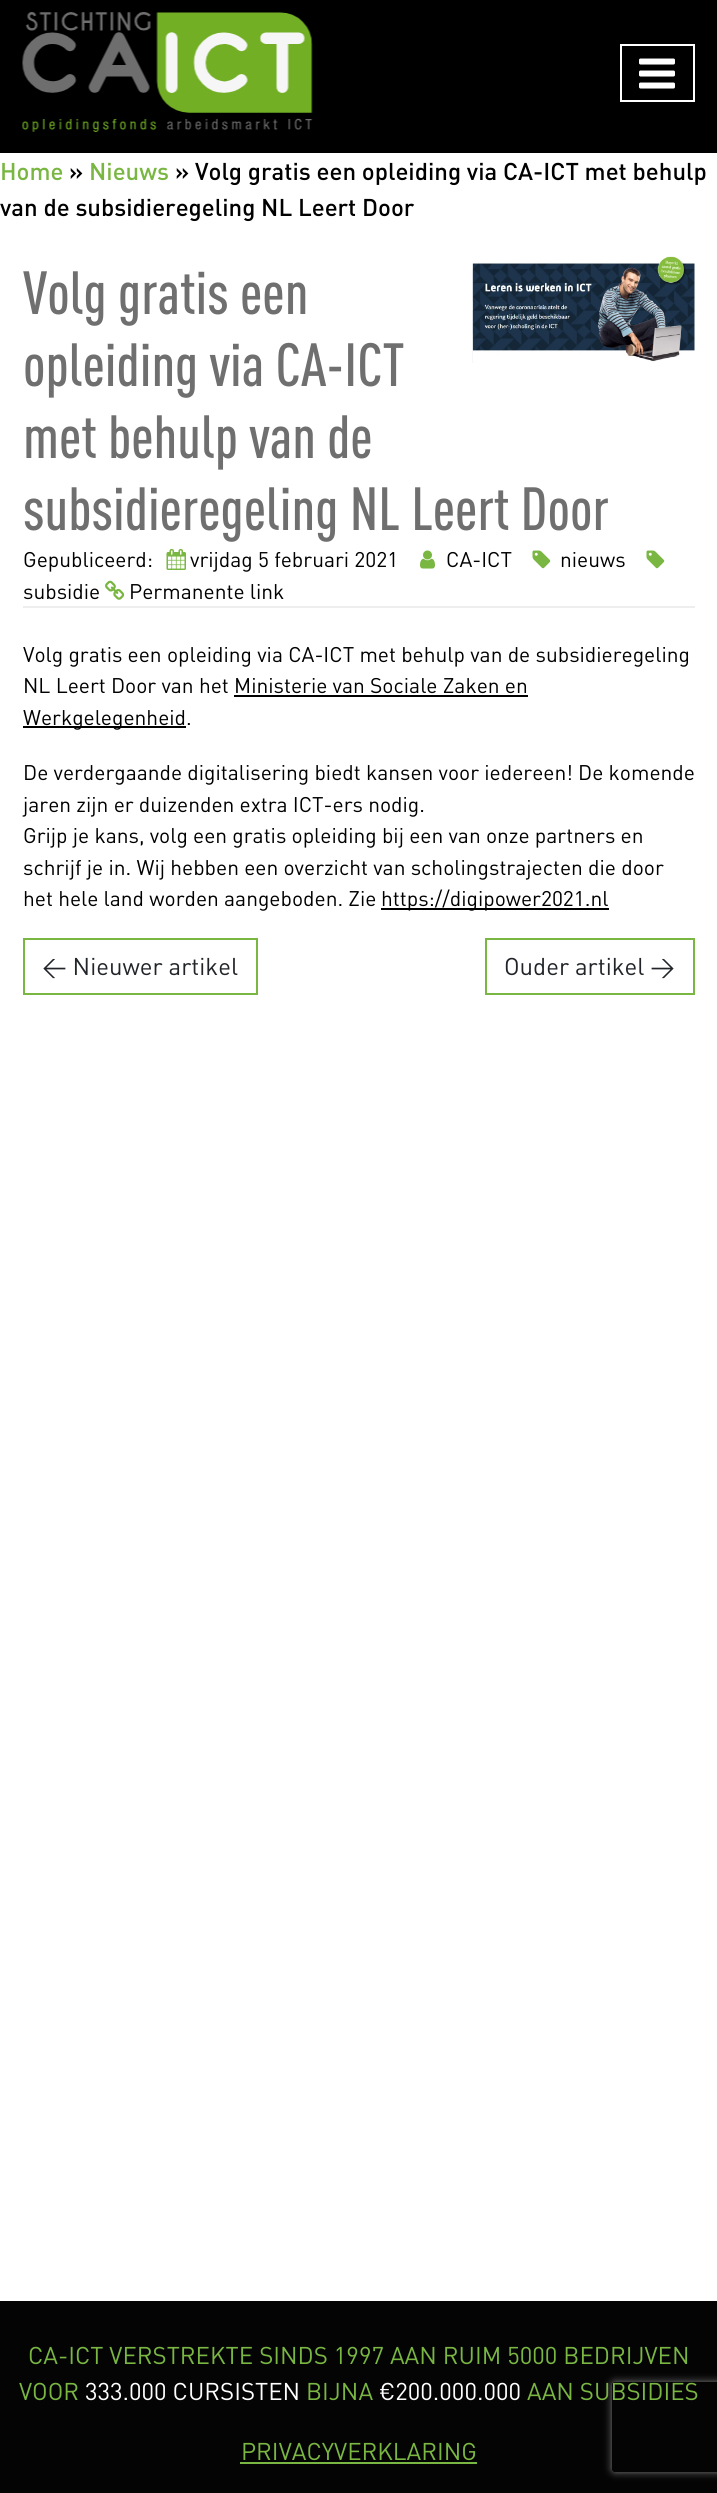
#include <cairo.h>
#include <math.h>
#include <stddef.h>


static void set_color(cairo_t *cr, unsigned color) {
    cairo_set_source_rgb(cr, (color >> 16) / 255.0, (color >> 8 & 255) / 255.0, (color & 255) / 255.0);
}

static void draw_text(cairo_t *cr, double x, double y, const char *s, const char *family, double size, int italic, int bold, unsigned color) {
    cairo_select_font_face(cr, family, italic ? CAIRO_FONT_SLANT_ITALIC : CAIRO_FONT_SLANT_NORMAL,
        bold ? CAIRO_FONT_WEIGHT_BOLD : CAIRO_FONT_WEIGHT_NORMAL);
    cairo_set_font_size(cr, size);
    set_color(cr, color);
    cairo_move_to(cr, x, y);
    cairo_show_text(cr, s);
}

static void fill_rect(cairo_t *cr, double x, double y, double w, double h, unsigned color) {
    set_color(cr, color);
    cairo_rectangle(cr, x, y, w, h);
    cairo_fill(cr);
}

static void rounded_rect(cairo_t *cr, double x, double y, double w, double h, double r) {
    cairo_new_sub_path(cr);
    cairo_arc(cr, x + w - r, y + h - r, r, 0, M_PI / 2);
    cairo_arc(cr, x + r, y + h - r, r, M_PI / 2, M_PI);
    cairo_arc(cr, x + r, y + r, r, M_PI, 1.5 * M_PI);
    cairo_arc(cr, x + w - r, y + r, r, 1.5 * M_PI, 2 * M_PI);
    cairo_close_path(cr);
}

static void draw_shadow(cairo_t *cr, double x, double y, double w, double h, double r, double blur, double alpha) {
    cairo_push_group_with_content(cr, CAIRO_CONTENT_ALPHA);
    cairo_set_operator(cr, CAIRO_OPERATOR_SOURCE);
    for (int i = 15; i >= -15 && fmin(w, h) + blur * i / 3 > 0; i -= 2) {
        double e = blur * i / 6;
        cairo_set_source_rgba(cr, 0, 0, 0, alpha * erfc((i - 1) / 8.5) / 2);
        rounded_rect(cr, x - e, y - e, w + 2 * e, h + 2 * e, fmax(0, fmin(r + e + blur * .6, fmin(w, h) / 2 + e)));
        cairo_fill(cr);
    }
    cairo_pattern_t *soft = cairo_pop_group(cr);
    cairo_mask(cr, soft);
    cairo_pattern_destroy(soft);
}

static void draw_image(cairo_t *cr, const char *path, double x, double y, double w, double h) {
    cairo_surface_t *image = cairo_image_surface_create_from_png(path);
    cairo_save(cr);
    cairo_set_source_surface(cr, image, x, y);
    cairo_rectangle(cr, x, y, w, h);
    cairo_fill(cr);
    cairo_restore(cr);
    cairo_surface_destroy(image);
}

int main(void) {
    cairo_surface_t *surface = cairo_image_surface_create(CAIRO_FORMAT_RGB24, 717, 2493);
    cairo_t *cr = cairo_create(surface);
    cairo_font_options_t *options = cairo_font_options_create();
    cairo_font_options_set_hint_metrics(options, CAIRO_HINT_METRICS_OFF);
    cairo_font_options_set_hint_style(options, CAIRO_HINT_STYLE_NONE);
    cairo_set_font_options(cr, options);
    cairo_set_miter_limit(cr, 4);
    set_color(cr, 0xFFFFFF);
    cairo_paint(cr);
    fill_rect(cr, 0, 0, 717, 153, 0x000000);
    draw_image(cr, "assets/img1.png", 22, 12, 291, 120);
    cairo_rectangle(cr, 621, 45, 73, 56);
    set_color(cr, 0xFFFFFF);
    cairo_stroke(cr);
    draw_image(cr, "assets/img2.png", 639, 58, 36, 31);
    draw_text(cr, 0, 180, "Home", "DIN Medium", 24, 0, 0, 0x79B642);
    draw_text(cr, 69, 180, "»", "DIN Medium", 24, 0, 0, 0x000000);
    draw_text(cr, 89, 180, "Nieuws", "DIN Medium", 24, 0, 0, 0x79B642);
    draw_text(cr, 175, 180, "» Volg gratis een opleiding via CA-ICT met behulp", "DIN Medium", 24, 0, 0, 0x000000);
    draw_text(cr, 0, 216, "van de subsidieregeling NL Leert Door", "DIN Medium", 24, 0, 0, 0x000000);
    fill_rect(cr, 23, 606, 672, 2, 0xEEEEEE);
    draw_image(cr, "assets/img3.png", 472, 256, 223, 107);
    draw_text(cr, 23, 314, "Volg gratis een", "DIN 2 Medium", 60, 0, 0, 0x706F6F);
    draw_text(cr, 23, 386, "opleiding via CA-ICT", "DIN 2 Medium", 60, 0, 0, 0x706F6F);
    draw_text(cr, 23, 458, "met behulp van de", "DIN 2 Medium", 60, 0, 0, 0x706F6F);
    draw_text(cr, 23, 530, "subsidieregeling NL Leert Door", "DIN 2 Medium", 60, 0, 0, 0x706F6F);
    draw_text(cr, 23, 567, "Gepubliceerd:", "DIN", 21, 0, 0, 0x000000);
    draw_image(cr, "assets/img4.png", 166, 549, 20, 21);
    draw_text(cr, 190, 567, "vrijdag 5 februari 2021", "DIN", 21, 0, 0, 0x000000);
    draw_image(cr, "assets/img5.png", 420, 550, 15, 19);
    draw_text(cr, 446, 567, "CA-ICT", "DIN", 21, 0, 0, 0x000000);
    draw_image(cr, "assets/img6.png", 532, 550, 19, 19);
    draw_text(cr, 560, 567, "nieuws", "DIN", 21, 0, 0, 0x000000);
    draw_image(cr, "assets/img6.png", 646, 550, 19, 19);
    draw_text(cr, 23, 599, "subsidie", "DIN", 21, 0, 0, 0x000000);
    draw_image(cr, "assets/img7.png", 105, 580, 20, 20);
    draw_text(cr, 129, 599, "Permanente link", "DIN", 21, 0, 0, 0x000000);
    draw_text(cr, 23, 662, "Volg gratis een opleiding via CA-ICT met behulp van de subsidieregeling", "DIN", 21, 0, 0, 0x000000);
    draw_text(cr, 23, 693, "NL Leert Door van het Ministerie van Sociale Zaken en", "DIN", 21, 0, 0, 0x000000);
    fill_rect(cr, 23, 726, 163, 2, 0x000000);
    draw_text(cr, 23, 725, "Werkgelegenheid.", "DIN", 21, 0, 0, 0x000000);
    fill_rect(cr, 234, 695, 294, 2, 0x000000);
    draw_text(cr, 23, 780, "De verdergaande digitalisering biedt kansen voor iedereen! De komende", "DIN", 21, 0, 0, 0x000000);
    draw_text(cr, 23, 812, "jaren zijn er duizenden extra ICT-ers nodig.", "DIN", 21, 0, 0, 0x000000);
    draw_text(cr, 23, 843, "Grijp je kans, volg een gratis opleiding bij een van onze partners en", "DIN", 21, 0, 0, 0x000000);
    draw_text(cr, 23, 875, "schrijf je in. Wij hebben een overzicht van scholingstrajecten die door", "DIN", 21, 0, 0, 0x000000);
    draw_text(cr, 23, 906, "het hele land worden aangeboden. Zie", "DIN", 21, 0, 0, 0x000000);
    fill_rect(cr, 381, 908, 228, 2, 0x000000);
    draw_text(cr, 381, 906, "https://digipower2021.nl", "DIN", 21, 0, 0, 0x000000);
    cairo_rectangle(cr, 24, 939, 233, 55);
    set_color(cr, 0x79B642);
    cairo_stroke(cr);
    draw_text(cr, 42, 975, "← Nieuwer artikel", "DIN", 24, 0, 0, 0x212529);
    cairo_rectangle(cr, 486, 939, 208, 55);
    set_color(cr, 0x79B642);
    cairo_stroke(cr);
    draw_text(cr, 504, 975, "Ouder artikel →", "DIN", 24, 0, 0, 0x212529);
    fill_rect(cr, 0, 2301, 717, 192, 0x040405);
    draw_text(cr, 28, 2364, "CA-ICT VERSTREKTE SINDS 1997 AAN RUIM 5000 BEDRIJVEN", "DIN", 24, 0, 0, 0x79B642);
    draw_text(cr, 19, 2400, "VOOR", "DIN", 24, 0, 0, 0x79B642);
    draw_text(cr, 85, 2400, "333.000 CURSISTEN", "DIN", 24, 0, 0, 0xFFFFFF);
    draw_text(cr, 306, 2400, "BIJNA", "DIN", 24, 0, 0, 0x79B642);
    draw_text(cr, 379, 2400, "€200.000.000", "DIN", 24, 0, 0, 0xFFFFFF);
    draw_text(cr, 527, 2400, "AAN SUBSIDIES", "DIN", 24, 0, 0, 0x79B642);
    draw_text(cr, 241, 2460, "PRIVACYVERKLARING", "DIN", 24, 0, 0, 0x79B642);
    fill_rect(cr, 240, 2462, 237, 2, 0x79B642);
    cairo_save(cr);
    cairo_set_fill_rule(cr, CAIRO_FILL_RULE_EVEN_ODD);
    cairo_new_path(cr);
    cairo_move_to(cr, 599, 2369);
    cairo_line_to(cr, 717, 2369);
    cairo_line_to(cr, 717, 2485);
    cairo_line_to(cr, 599, 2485);
    cairo_close_path(cr);
    cairo_move_to(cr, 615, 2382);
    cairo_line_to(cr, 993, 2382);
    cairo_curve_to(cr, 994.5, 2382, 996, 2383.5, 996, 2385);
    cairo_line_to(cr, 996, 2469);
    cairo_curve_to(cr, 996, 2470.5, 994.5, 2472, 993, 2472);
    cairo_line_to(cr, 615, 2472);
    cairo_curve_to(cr, 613.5, 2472, 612, 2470.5, 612, 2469);
    cairo_line_to(cr, 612, 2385);
    cairo_curve_to(cr, 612, 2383.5, 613.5, 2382, 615, 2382);
    cairo_close_path(cr);
    cairo_clip(cr);
    set_color(cr, 0x808080);
    draw_shadow(cr, 612, 2382, 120, 90, 3, 4, 1);
    cairo_restore(cr);
    cairo_surface_write_to_png(surface, "output.png");
    cairo_font_options_destroy(options);
    cairo_destroy(cr);
    cairo_surface_destroy(surface);
    return 0;
}
